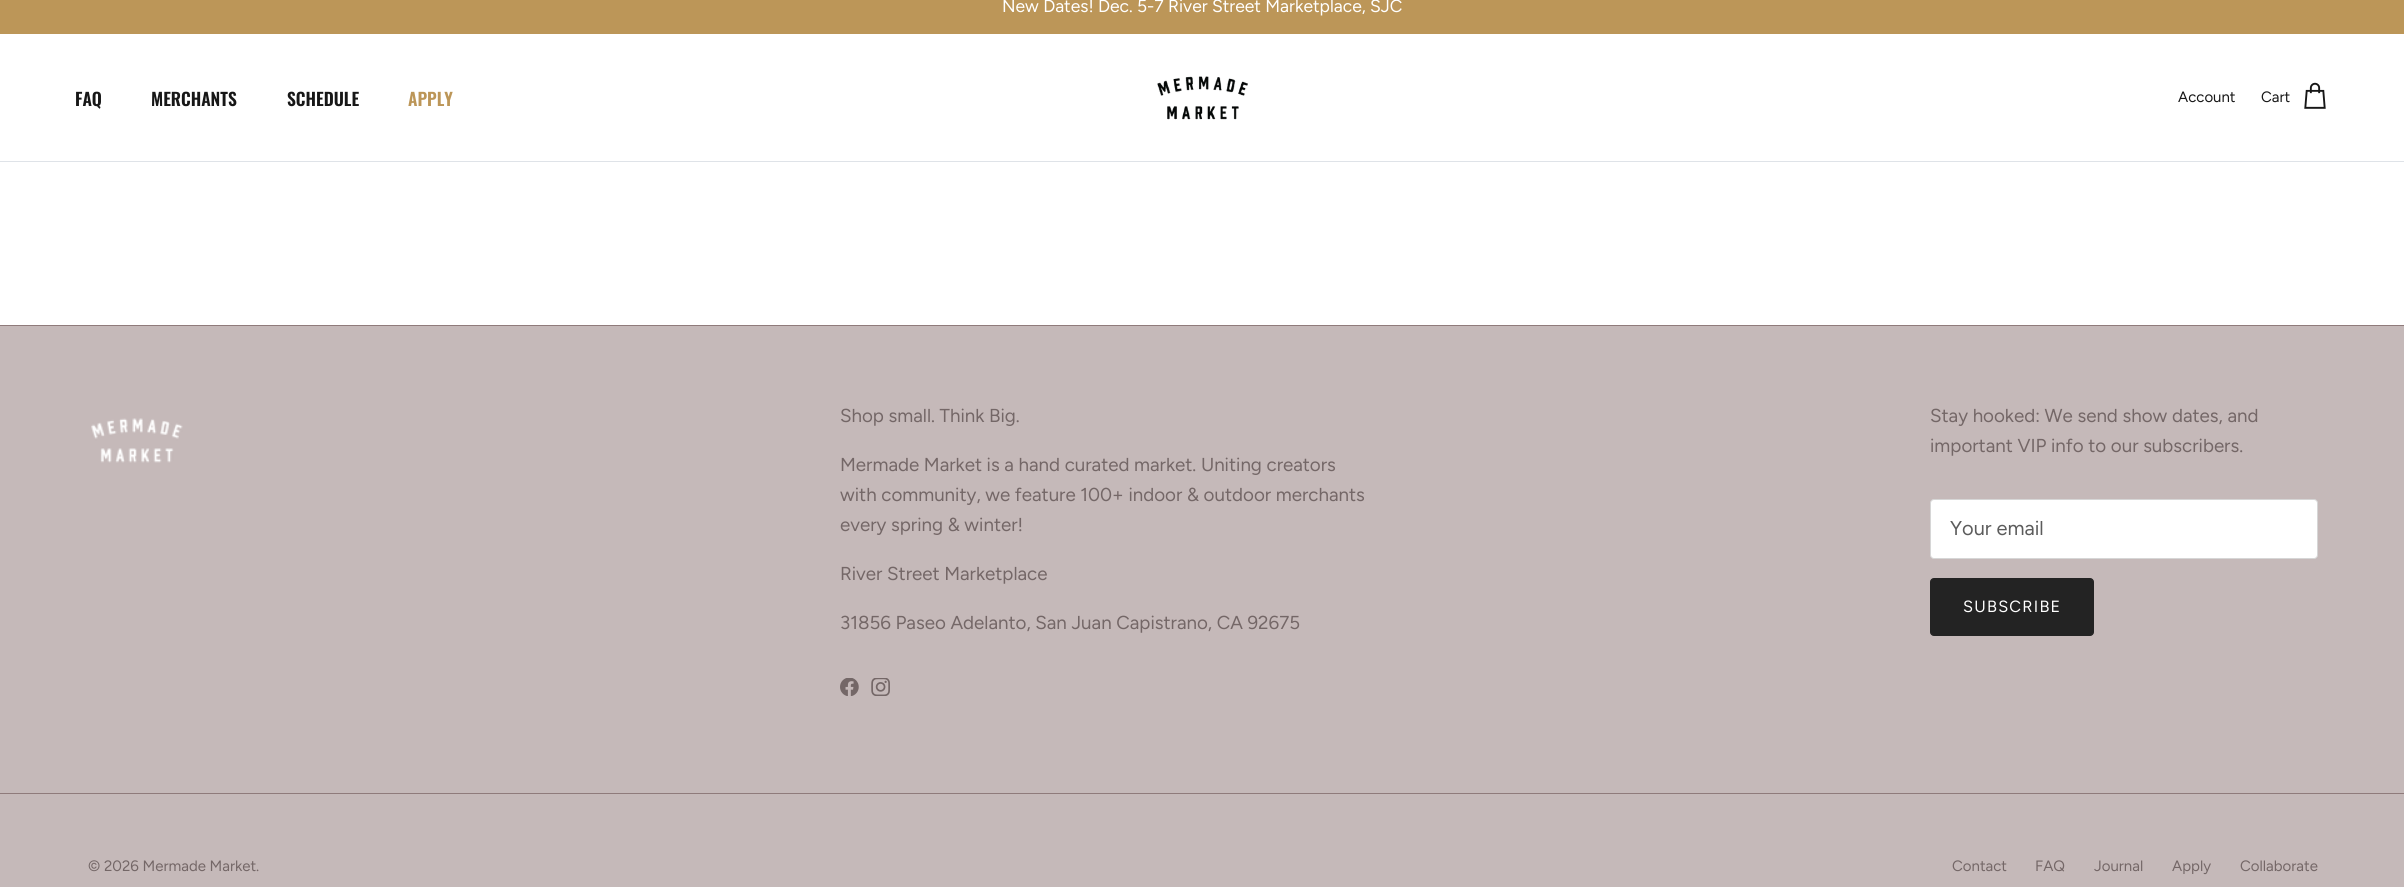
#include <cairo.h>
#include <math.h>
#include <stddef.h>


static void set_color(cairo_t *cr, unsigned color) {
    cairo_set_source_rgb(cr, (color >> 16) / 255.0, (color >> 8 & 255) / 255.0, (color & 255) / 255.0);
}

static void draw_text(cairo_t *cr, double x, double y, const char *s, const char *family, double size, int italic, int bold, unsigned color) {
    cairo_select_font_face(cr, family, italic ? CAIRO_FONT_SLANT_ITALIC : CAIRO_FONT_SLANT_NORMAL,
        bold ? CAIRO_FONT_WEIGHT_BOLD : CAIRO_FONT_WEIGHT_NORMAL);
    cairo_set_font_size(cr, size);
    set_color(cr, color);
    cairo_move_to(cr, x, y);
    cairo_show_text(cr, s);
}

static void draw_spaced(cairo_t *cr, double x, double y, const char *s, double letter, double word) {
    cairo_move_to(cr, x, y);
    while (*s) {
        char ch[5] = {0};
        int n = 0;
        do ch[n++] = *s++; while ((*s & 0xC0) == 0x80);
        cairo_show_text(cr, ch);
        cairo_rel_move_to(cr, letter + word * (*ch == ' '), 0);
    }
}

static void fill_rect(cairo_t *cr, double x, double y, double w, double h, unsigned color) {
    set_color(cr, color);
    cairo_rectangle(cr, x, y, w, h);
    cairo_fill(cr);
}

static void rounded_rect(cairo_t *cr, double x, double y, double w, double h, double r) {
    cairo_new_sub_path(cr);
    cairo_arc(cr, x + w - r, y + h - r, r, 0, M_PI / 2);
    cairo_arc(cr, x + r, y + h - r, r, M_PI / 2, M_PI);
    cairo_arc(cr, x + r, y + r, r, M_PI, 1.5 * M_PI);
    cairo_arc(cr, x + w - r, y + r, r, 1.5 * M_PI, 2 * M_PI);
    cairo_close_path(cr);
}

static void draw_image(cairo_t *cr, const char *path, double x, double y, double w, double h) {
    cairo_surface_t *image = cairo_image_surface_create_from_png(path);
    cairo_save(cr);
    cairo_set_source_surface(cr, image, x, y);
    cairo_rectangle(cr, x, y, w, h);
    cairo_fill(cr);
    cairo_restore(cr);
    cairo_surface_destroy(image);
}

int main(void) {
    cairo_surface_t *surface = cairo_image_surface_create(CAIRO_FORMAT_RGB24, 2404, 887);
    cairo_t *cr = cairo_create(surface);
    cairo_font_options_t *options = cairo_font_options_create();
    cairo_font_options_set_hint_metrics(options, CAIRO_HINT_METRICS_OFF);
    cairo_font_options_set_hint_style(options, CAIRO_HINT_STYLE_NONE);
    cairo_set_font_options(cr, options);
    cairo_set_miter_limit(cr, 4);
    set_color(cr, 0xFFFFFF);
    cairo_paint(cr);
    fill_rect(cr, 0, 0, 2404, 34, 0xBC9658);
    draw_text(cr, 1002, 12, "New Dates! Dec. 5-7 River Street Marketplace, SJC", "Figtree", 17.5, 0, 0, 0xFFFFFF);
    fill_rect(cr, 0, 161, 2404, 1, 0xDFE3E8);
    draw_text(cr, 75, 106, "FAQ", "Oswald SemiBold", 17.5, 0, 0, 0x171717);
    draw_text(cr, 151, 106, "MERCHANTS", "Oswald SemiBold", 17.5, 0, 0, 0x171717);
    draw_text(cr, 287, 106, "SCHEDULE", "Oswald SemiBold", 17.5, 0, 0, 0x171717);
    draw_text(cr, 408, 106, "APPLY", "Oswald SemiBold", 17.5, 0, 0, 0xBC9658);
    draw_image(cr, "assets/img1.png", 1157, 76, 91, 44);
    draw_text(cr, 2178, 102, "Account", "Figtree", 15, 0, 0, 0x171717);
    draw_text(cr, 2261, 102, "Cart", "Figtree", 15, 0, 0, 0x171717);
    draw_image(cr, "assets/img2.png", 2304, 82, 22, 27);
    fill_rect(cr, 0, 326, 2404, 561, 0xC5B9B9);
    fill_rect(cr, 0, 325, 2404, 1, 0x8F7B7B);
    draw_image(cr, "assets/img3.png", 91, 418, 92, 45);
    draw_text(cr, 840, 422, "Shop small. Think Big.", "Figtree", 18.75, 0, 0, 0x746767);
    draw_text(cr, 840, 471, "Mermade Market is a hand curated market. Uniting creators", "Figtree", 18.75, 0, 0, 0x746767);
    draw_text(cr, 840, 501, "with community, we feature 100+ indoor & outdoor merchants", "Figtree", 18.75, 0, 0, 0x746767);
    draw_text(cr, 840, 531, "every spring & winter!", "Figtree", 18.75, 0, 0, 0x746767);
    draw_text(cr, 840, 580, "River Street Marketplace", "Figtree", 18.75, 0, 0, 0x746767);
    draw_text(cr, 840, 629, "31856 Paseo Adelanto, San Juan Capistrano, CA 92675", "Figtree", 18.75, 0, 0, 0x746767);
    draw_image(cr, "assets/img4.png", 840, 678, 19, 18);
    draw_image(cr, "assets/img5.png", 871, 678, 19, 18);
    draw_text(cr, 1930, 422, "Stay hooked: We send show dates, and", "Figtree", 18.75, 0, 0, 0x746767);
    draw_text(cr, 1930, 452, "important VIP info to our subscribers.", "Figtree", 18.75, 0, 0, 0x746767);
    set_color(cr, 0xFFFFFF);
    rounded_rect(cr, 1930.5, 499.5, 387, 59, 3.5);
    cairo_fill_preserve(cr);
    set_color(cr, 0xD6D6D6);
    cairo_set_line_width(cr, 1);
    cairo_stroke(cr);
    draw_text(cr, 1950, 535, "Your email", "Figtree", 20, 0, 0, 0x5C5C5C);
    set_color(cr, 0x232323);
    rounded_rect(cr, 1930.5, 578.5, 163, 57, 3.5);
    cairo_fill_preserve(cr);
    cairo_stroke(cr);
    cairo_set_font_size(cr, 16.25);
    set_color(cr, 0xFFFFFF);
    draw_spaced(cr, 1963, 612, "SUBSCRIBE", 1.25, 0);
    fill_rect(cr, 0, 793, 2404, 1, 0x8F7B7B);
    draw_text(cr, 88, 871, "© 2026 Mermade Market.", "Figtree", 15, 0, 0, 0x746767);
    draw_text(cr, 1952, 871, "Contact", "Figtree", 15, 0, 0, 0x746767);
    draw_text(cr, 2035, 871, "FAQ", "Figtree", 15, 0, 0, 0x746767);
    draw_text(cr, 2094, 871, "Journal", "Figtree", 15, 0, 0, 0x746767);
    draw_text(cr, 2172, 871, "Apply", "Figtree", 15, 0, 0, 0x746767);
    draw_text(cr, 2240, 871, "Collaborate", "Figtree", 15, 0, 0, 0x746767);
    cairo_surface_write_to_png(surface, "output.png");
    cairo_font_options_destroy(options);
    cairo_destroy(cr);
    cairo_surface_destroy(surface);
    return 0;
}
